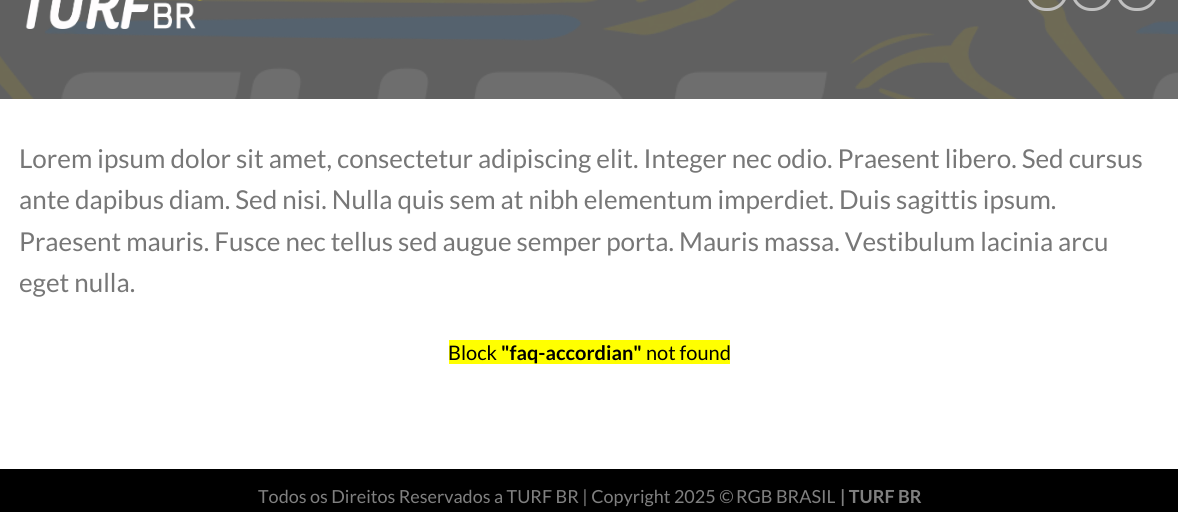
#include <cairo.h>
#include <math.h>
#include <stddef.h>


static void set_color(cairo_t *cr, unsigned color) {
    cairo_set_source_rgb(cr, (color >> 16) / 255.0, (color >> 8 & 255) / 255.0, (color & 255) / 255.0);
}

static void draw_text(cairo_t *cr, double x, double y, const char *s, const char *family, double size, int italic, int bold, unsigned color) {
    cairo_select_font_face(cr, family, italic ? CAIRO_FONT_SLANT_ITALIC : CAIRO_FONT_SLANT_NORMAL,
        bold ? CAIRO_FONT_WEIGHT_BOLD : CAIRO_FONT_WEIGHT_NORMAL);
    cairo_set_font_size(cr, size);
    set_color(cr, color);
    cairo_move_to(cr, x, y);
    cairo_show_text(cr, s);
}

static void fill_rect(cairo_t *cr, double x, double y, double w, double h, unsigned color) {
    set_color(cr, color);
    cairo_rectangle(cr, x, y, w, h);
    cairo_fill(cr);
}

static void rounded_rect(cairo_t *cr, double x, double y, double w, double h, double r) {
    cairo_new_sub_path(cr);
    cairo_arc(cr, x + w - r, y + h - r, r, 0, M_PI / 2);
    cairo_arc(cr, x + r, y + h - r, r, M_PI / 2, M_PI);
    cairo_arc(cr, x + r, y + r, r, M_PI, 1.5 * M_PI);
    cairo_arc(cr, x + w - r, y + r, r, 1.5 * M_PI, 2 * M_PI);
    cairo_close_path(cr);
}

static void draw_image(cairo_t *cr, const char *path, double x, double y, double w, double h) {
    cairo_surface_t *image = cairo_image_surface_create_from_png(path);
    cairo_save(cr);
    cairo_set_source_surface(cr, image, x, y);
    cairo_rectangle(cr, x, y, w, h);
    cairo_fill(cr);
    cairo_restore(cr);
    cairo_surface_destroy(image);
}

int main(void) {
    cairo_surface_t *surface = cairo_image_surface_create(CAIRO_FORMAT_RGB24, 1178, 512);
    cairo_t *cr = cairo_create(surface);
    cairo_font_options_t *options = cairo_font_options_create();
    cairo_font_options_set_hint_metrics(options, CAIRO_HINT_METRICS_OFF);
    cairo_font_options_set_hint_style(options, CAIRO_HINT_STYLE_NONE);
    cairo_set_font_options(cr, options);
    cairo_set_miter_limit(cr, 4);
    set_color(cr, 0xFFFFFF);
    cairo_paint(cr);
    fill_rect(cr, 0, 0, 1178, 99, 0x606060);
    draw_image(cr, "assets/img2.png", 0, 0, 1178, 99);
    rounded_rect(cr, 1027.5, -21.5, 39, 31, 18.5);
    set_color(cr, 0xC0C0C0);
    cairo_set_line_width(cr, 3);
    cairo_stroke(cr);
    rounded_rect(cr, 1072.5, -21.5, 39, 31, 18.5);
    cairo_stroke(cr);
    rounded_rect(cr, 1117.5, -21.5, 39, 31, 18.5);
    cairo_stroke(cr);
    draw_image(cr, "assets/img1.png", 25, 0, 178, 29);
    draw_text(cr, 19, 168, "Lorem ipsum dolor sit amet, consectetur adipiscing elit. Integer nec odio. Praesent libero. Sed cursus", "Lato", 26, 0, 0, 0x777777);
    draw_text(cr, 19, 209, "ante dapibus diam. Sed nisi. Nulla quis sem at nibh elementum imperdiet. Duis sagittis ipsum.", "Lato", 26, 0, 0, 0x777777);
    draw_text(cr, 19, 251, "Praesent mauris. Fusce nec tellus sed augue semper porta. Mauris massa. Vestibulum lacinia arcu", "Lato", 26, 0, 0, 0x777777);
    draw_text(cr, 19, 292, "eget nulla.", "Lato", 26, 0, 0, 0x777777);
    fill_rect(cr, 449, 340, 281, 24, 0xFFFF00);
    draw_text(cr, 448, 360, "Block", "Lato", 20, 0, 0, 0x000000);
    draw_text(cr, 501, 360, "\"faq-accordian\"", "Lato", 20, 0, 1, 0x000000);
    draw_text(cr, 646, 360, "not found", "Lato", 20, 0, 0, 0x000000);
    fill_rect(cr, 0, 469, 1178, 43, 0x000000);
    draw_text(cr, 258, 503, "Todos os Direitos Reservados a TURF BR | Copyright 2025 ©", "Lato", 18, 0, 0, 0x808080);
    draw_text(cr, 736, 503, "RGB BRASIL", "Lato", 18, 0, 0, 0x808080);
    draw_text(cr, 840, 503, "| TURF BR", "Lato", 18, 0, 1, 0x808080);
    cairo_surface_write_to_png(surface, "output.png");
    cairo_font_options_destroy(options);
    cairo_destroy(cr);
    cairo_surface_destroy(surface);
    return 0;
}
